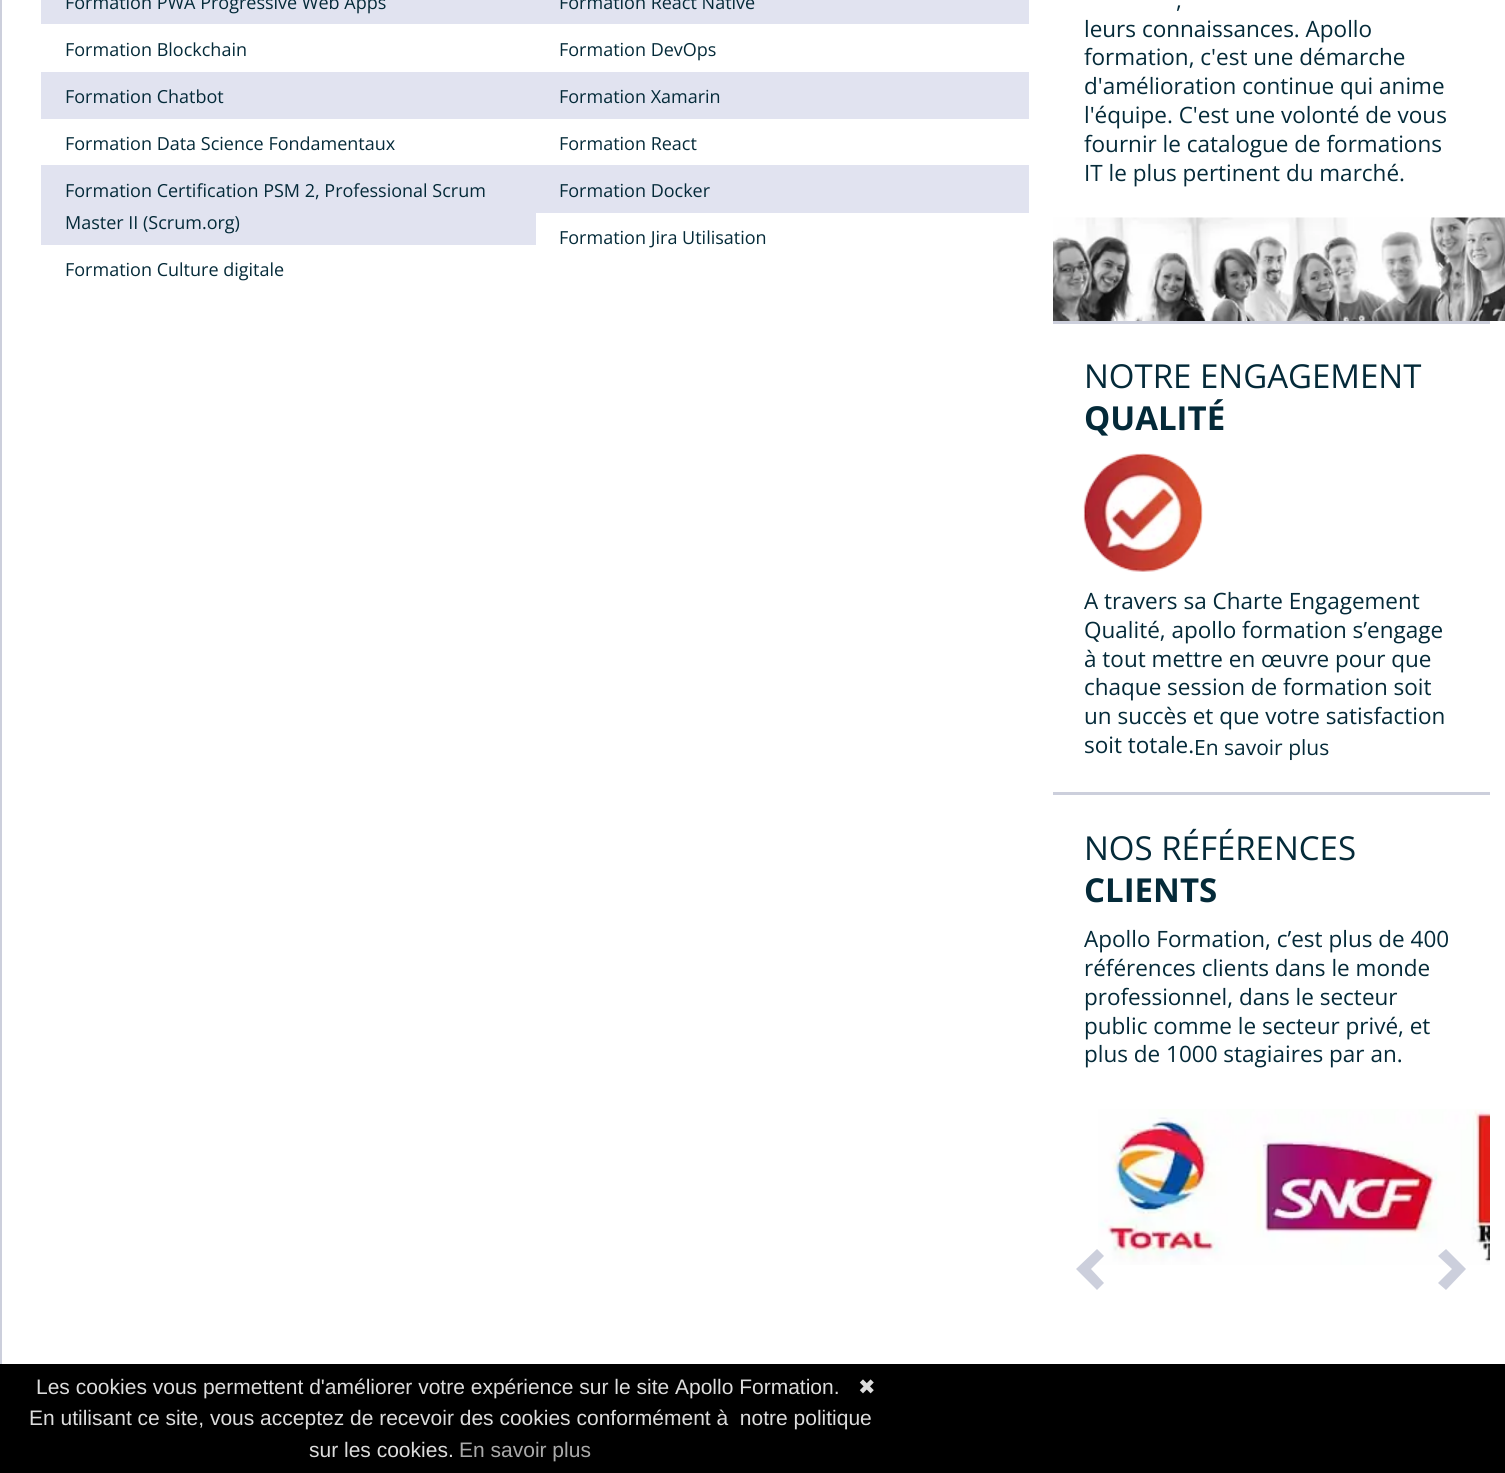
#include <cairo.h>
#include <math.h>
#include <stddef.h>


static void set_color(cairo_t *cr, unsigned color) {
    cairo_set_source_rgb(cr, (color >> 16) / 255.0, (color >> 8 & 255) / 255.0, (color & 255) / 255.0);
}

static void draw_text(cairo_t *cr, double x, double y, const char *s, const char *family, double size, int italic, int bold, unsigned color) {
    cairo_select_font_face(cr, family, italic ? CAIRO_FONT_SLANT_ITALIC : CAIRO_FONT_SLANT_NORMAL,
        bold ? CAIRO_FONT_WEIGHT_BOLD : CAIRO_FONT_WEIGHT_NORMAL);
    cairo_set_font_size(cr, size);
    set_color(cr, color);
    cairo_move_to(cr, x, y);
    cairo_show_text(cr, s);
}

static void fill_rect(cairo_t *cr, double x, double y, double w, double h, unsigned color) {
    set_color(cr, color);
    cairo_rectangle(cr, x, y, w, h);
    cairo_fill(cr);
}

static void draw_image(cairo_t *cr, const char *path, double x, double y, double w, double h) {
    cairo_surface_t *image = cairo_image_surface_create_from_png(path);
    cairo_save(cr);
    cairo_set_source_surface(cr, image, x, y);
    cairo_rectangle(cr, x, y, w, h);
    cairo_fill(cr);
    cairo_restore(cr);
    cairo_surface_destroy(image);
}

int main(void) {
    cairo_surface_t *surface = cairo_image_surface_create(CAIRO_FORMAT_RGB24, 1505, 1473);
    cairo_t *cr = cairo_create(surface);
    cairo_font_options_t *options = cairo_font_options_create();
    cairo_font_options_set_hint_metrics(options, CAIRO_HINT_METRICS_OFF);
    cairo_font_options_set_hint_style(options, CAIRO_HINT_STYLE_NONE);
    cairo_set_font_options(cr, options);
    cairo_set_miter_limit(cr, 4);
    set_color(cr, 0xFFFFFF);
    cairo_paint(cr);
    cairo_rectangle(cr, 1, -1, 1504, 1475);
    set_color(cr, 0xCCCFDC);
    cairo_stroke(cr);
    fill_rect(cr, 1504, 0, 1, 1364, 0xFFFFFF);
    fill_rect(cr, 41, 0, 988, 24, 0xE1E3F0);
    draw_text(cr, 65, 9, "Formation PWA Progressive Web Apps", "Open Sans", 18, 0, 0, 0x042A39);
    draw_text(cr, 65, 56, "Formation Blockchain", "Open Sans", 18, 0, 0, 0x042A39);
    fill_rect(cr, 41, 72, 988, 47, 0xE1E3F0);
    draw_text(cr, 65, 103, "Formation Chatbot", "Open Sans", 18, 0, 0, 0x042A39);
    draw_text(cr, 65, 150, "Formation Data Science Fondamentaux", "Open Sans", 18, 0, 0, 0x042A39);
    fill_rect(cr, 41, 165, 495, 80, 0xE1E3F0);
    draw_text(cr, 65, 197, "Formation Certification PSM 2, Professional Scrum", "Open Sans", 18, 0, 0, 0x042A39);
    draw_text(cr, 65, 229, "Master II (Scrum.org)", "Open Sans", 18, 0, 0, 0x042A39);
    draw_text(cr, 65, 276, "Formation Culture digitale", "Open Sans", 18, 0, 0, 0x042A39);
    draw_text(cr, 559, 9, "Formation React Native", "Open Sans", 18, 0, 0, 0x042A39);
    draw_text(cr, 559, 56, "Formation DevOps", "Open Sans", 18, 0, 0, 0x042A39);
    draw_text(cr, 559, 103, "Formation Xamarin", "Open Sans", 18, 0, 0, 0x042A39);
    draw_text(cr, 559, 150, "Formation React", "Open Sans", 18, 0, 0, 0x042A39);
    fill_rect(cr, 536, 165, 493, 48, 0xE1E3F0);
    draw_text(cr, 559, 197, "Formation Docker", "Open Sans", 18, 0, 0, 0x042A39);
    draw_text(cr, 559, 244, "Formation Jira Utilisation", "Open Sans", 18, 0, 0, 0x042A39);
    draw_text(cr, 1176, 8, ",", "Open Sans", 22.5, 0, 0, 0x042A39);
    draw_text(cr, 1084, 37, "leurs connaissances. Apollo", "Open Sans", 22.5, 0, 0, 0x042A39);
    draw_text(cr, 1084, 65, "formation, c'est une démarche", "Open Sans", 22.5, 0, 0, 0x042A39);
    draw_text(cr, 1084, 94, "d'amélioration continue qui anime", "Open Sans", 22.5, 0, 0, 0x042A39);
    draw_text(cr, 1084, 123, "l'équipe. C'est une volonté de vous", "Open Sans", 22.5, 0, 0, 0x042A39);
    draw_text(cr, 1084, 152, "fournir le catalogue de formations", "Open Sans", 22.5, 0, 0, 0x042A39);
    draw_text(cr, 1084, 181, "IT le plus pertinent du marché.", "Open Sans", 22.5, 0, 0, 0x042A39);
    draw_image(cr, "assets/img1.png", 1053, 217, 452, 104);
    fill_rect(cr, 1053, 321, 437, 3, 0xCCCFDC);
    draw_text(cr, 1084, 388, "NOTRE ENGAGEMENT", "Open Sans", 33, 0, 0, 0x042A39);
    draw_text(cr, 1084, 430, "QUALITÉ", "Open Sans", 33, 0, 1, 0x042A39);
    draw_image(cr, "assets/img2.png", 1083, 453, 120, 119);
    draw_text(cr, 1084, 609, "A travers sa Charte Engagement", "Open Sans", 22.5, 0, 0, 0x042A39);
    draw_text(cr, 1084, 638, "Qualité, apollo formation s’engage", "Open Sans", 22.5, 0, 0, 0x042A39);
    draw_text(cr, 1084, 667, "à tout mettre en œuvre pour que", "Open Sans", 22.5, 0, 0, 0x042A39);
    draw_text(cr, 1084, 695, "chaque session de formation soit", "Open Sans", 22.5, 0, 0, 0x042A39);
    draw_text(cr, 1084, 724, "un succès et que votre satisfaction", "Open Sans", 22.5, 0, 0, 0x042A39);
    draw_text(cr, 1084, 753, "soit totale.", "Open Sans", 22.5, 0, 0, 0x042A39);
    draw_text(cr, 1194, 755, "En savoir plus", "Open Sans", 21, 0, 0, 0x042A39);
    fill_rect(cr, 1053, 792, 437, 3, 0xCCCFDC);
    draw_text(cr, 1084, 860, "NOS RÉFÉRENCES", "Open Sans", 33, 0, 0, 0x042A39);
    draw_text(cr, 1084, 902, "CLIENTS", "Open Sans", 33, 0, 1, 0x042A39);
    draw_text(cr, 1084, 947, "Apollo Formation, c’est plus de 400", "Open Sans", 22.5, 0, 0, 0x042A39);
    draw_text(cr, 1084, 976, "références clients dans le monde", "Open Sans", 22.5, 0, 0, 0x042A39);
    draw_text(cr, 1084, 1005, "professionnel, dans le secteur", "Open Sans", 22.5, 0, 0, 0x042A39);
    draw_text(cr, 1084, 1034, "public comme le secteur privé, et", "Open Sans", 22.5, 0, 0, 0x042A39);
    draw_text(cr, 1084, 1062, "plus de 1000 stagiaires par an.", "Open Sans", 22.5, 0, 0, 0x042A39);
    draw_image(cr, "assets/img3.png", 1098, 1109, 392, 156);
    set_color(cr, 0xCCCFDC);
    cairo_new_path(cr);
    cairo_move_to(cr, 1104, 1256);
    cairo_line_to(cr, 1091, 1269);
    cairo_line_to(cr, 1104, 1283);
    cairo_line_to(cr, 1097, 1290);
    cairo_line_to(cr, 1076, 1269);
    cairo_line_to(cr, 1097, 1249);
    cairo_close_path(cr);
    cairo_fill(cr);
    cairo_new_path(cr);
    cairo_move_to(cr, 1466, 1269);
    cairo_line_to(cr, 1446, 1290);
    cairo_line_to(cr, 1438, 1283);
    cairo_line_to(cr, 1452, 1269);
    cairo_line_to(cr, 1438, 1256);
    cairo_line_to(cr, 1446, 1249);
    cairo_close_path(cr);
    cairo_fill(cr);
    fill_rect(cr, 0, 1364, 1505, 109, 0x000000);
    draw_text(cr, 36, 1394, "Les cookies vous permettent d'améliorer votre expérience sur le site Apollo Formation.", "Liberation Sans", 21, 0, 0, 0xDDDDDD);
    draw_text(cr, 858, 1394, "✖", "DejaVu Sans", 21, 0, 0, 0xDDDDDD);
    draw_text(cr, 29, 1425, "En utilisant ce site, vous acceptez de recevoir des cookies conformément à  notre politique", "Liberation Sans", 21, 0, 0, 0xDDDDDD);
    draw_text(cr, 309, 1457, "sur les cookies.", "Liberation Sans", 21, 0, 0, 0xDDDDDD);
    draw_text(cr, 459, 1457, "En savoir plus", "Liberation Sans", 21, 0, 0, 0xAAAAAA);
    cairo_surface_write_to_png(surface, "output.png");
    cairo_font_options_destroy(options);
    cairo_destroy(cr);
    cairo_surface_destroy(surface);
    return 0;
}
